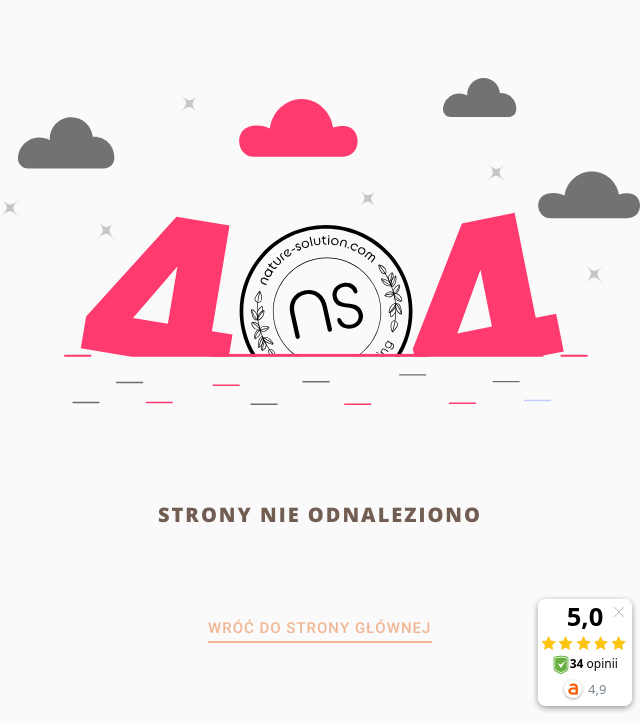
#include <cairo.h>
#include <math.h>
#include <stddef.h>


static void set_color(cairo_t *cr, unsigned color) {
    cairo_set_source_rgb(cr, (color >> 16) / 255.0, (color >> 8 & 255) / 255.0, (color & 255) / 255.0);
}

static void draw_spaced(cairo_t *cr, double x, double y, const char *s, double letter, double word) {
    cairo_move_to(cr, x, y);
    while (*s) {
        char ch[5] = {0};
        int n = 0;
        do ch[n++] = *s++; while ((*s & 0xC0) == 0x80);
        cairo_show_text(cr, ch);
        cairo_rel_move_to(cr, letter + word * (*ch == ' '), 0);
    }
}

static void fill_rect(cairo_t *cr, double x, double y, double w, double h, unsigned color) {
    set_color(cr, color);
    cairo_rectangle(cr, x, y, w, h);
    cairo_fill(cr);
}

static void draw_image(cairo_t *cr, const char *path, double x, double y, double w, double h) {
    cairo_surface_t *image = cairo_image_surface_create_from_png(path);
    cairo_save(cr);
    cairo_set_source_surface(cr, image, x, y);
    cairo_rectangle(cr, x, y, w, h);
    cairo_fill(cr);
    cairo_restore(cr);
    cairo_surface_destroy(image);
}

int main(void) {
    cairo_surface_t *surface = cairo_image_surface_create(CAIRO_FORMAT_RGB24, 640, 721);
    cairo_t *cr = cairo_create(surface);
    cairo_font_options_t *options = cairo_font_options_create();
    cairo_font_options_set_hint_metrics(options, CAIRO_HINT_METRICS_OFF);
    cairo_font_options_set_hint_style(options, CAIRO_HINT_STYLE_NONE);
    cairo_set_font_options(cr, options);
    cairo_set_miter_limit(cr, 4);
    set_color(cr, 0xFAFAFA);
    cairo_paint(cr);
    draw_image(cr, "assets/img1.png", 1, 78, 639, 327);
    cairo_select_font_face(cr, "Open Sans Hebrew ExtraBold", CAIRO_FONT_SLANT_NORMAL, CAIRO_FONT_WEIGHT_NORMAL);
    cairo_set_font_size(cr, 20);
    set_color(cr, 0x725D52);
    draw_spaced(cr, 158, 522, "STRONY NIE ODNALEZIONO", 2, 0);
    cairo_select_font_face(cr, "Roboto Medium", CAIRO_FONT_SLANT_NORMAL, CAIRO_FONT_WEIGHT_NORMAL);
    cairo_set_font_size(cr, 15);
    set_color(cr, 0xF1B694);
    draw_spaced(cr, 208, 633, "WRÓĆ DO STRONY GŁÓWNEJ", 1, 0);
    fill_rect(cr, 208, 641, 224, 2, 0xF1B694);
    draw_image(cr, "assets/img2.png", 533, 596, 104, 117);
    cairo_surface_write_to_png(surface, "output.png");
    cairo_font_options_destroy(options);
    cairo_destroy(cr);
    cairo_surface_destroy(surface);
    return 0;
}
